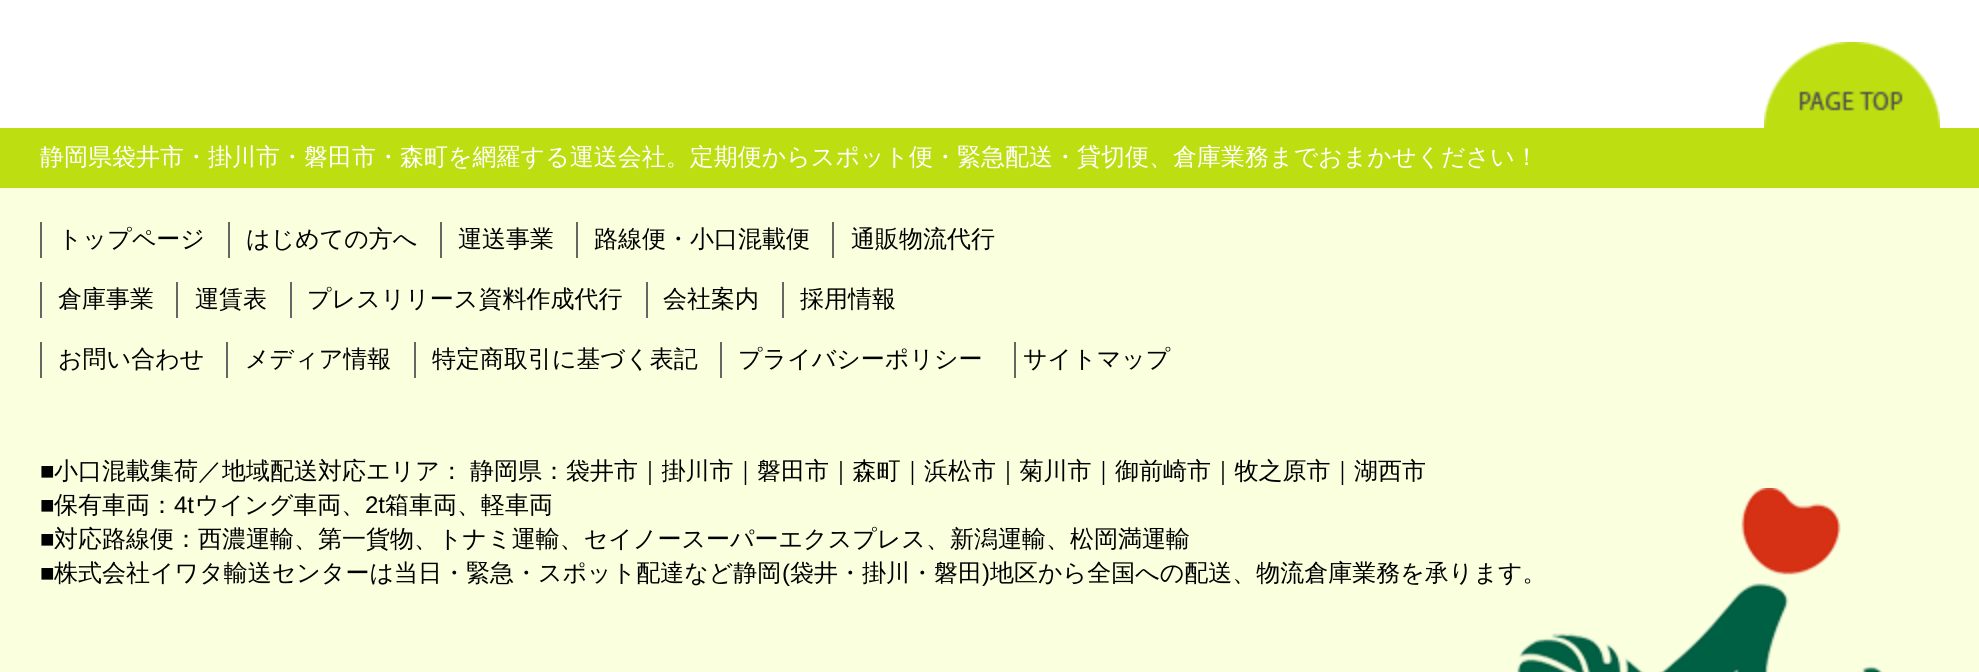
#include <cairo.h>
#include <math.h>
#include <stddef.h>


static void set_color(cairo_t *cr, unsigned color) {
    cairo_set_source_rgb(cr, (color >> 16) / 255.0, (color >> 8 & 255) / 255.0, (color & 255) / 255.0);
}

static void draw_text(cairo_t *cr, double x, double y, const char *s, const char *family, double size, int italic, int bold, unsigned color) {
    cairo_select_font_face(cr, family, italic ? CAIRO_FONT_SLANT_ITALIC : CAIRO_FONT_SLANT_NORMAL,
        bold ? CAIRO_FONT_WEIGHT_BOLD : CAIRO_FONT_WEIGHT_NORMAL);
    cairo_set_font_size(cr, size);
    set_color(cr, color);
    cairo_move_to(cr, x, y);
    cairo_show_text(cr, s);
}

static void draw_spaced(cairo_t *cr, double x, double y, const char *s, double letter, double word) {
    cairo_move_to(cr, x, y);
    while (*s) {
        char ch[5] = {0};
        int n = 0;
        do ch[n++] = *s++; while ((*s & 0xC0) == 0x80);
        cairo_show_text(cr, ch);
        cairo_rel_move_to(cr, letter + word * (*ch == ' '), 0);
    }
}

static void fill_rect(cairo_t *cr, double x, double y, double w, double h, unsigned color) {
    set_color(cr, color);
    cairo_rectangle(cr, x, y, w, h);
    cairo_fill(cr);
}

static void draw_image(cairo_t *cr, const char *path, double x, double y, double w, double h) {
    cairo_surface_t *image = cairo_image_surface_create_from_png(path);
    cairo_save(cr);
    cairo_set_source_surface(cr, image, x, y);
    cairo_rectangle(cr, x, y, w, h);
    cairo_fill(cr);
    cairo_restore(cr);
    cairo_surface_destroy(image);
}

int main(void) {
    cairo_surface_t *surface = cairo_image_surface_create(CAIRO_FORMAT_RGB24, 1979, 672);
    cairo_t *cr = cairo_create(surface);
    cairo_font_options_t *options = cairo_font_options_create();
    cairo_font_options_set_hint_metrics(options, CAIRO_HINT_METRICS_OFF);
    cairo_font_options_set_hint_style(options, CAIRO_HINT_STYLE_NONE);
    cairo_set_font_options(cr, options);
    cairo_set_miter_limit(cr, 4);
    set_color(cr, 0xFFFFFF);
    cairo_paint(cr);
    draw_image(cr, "assets/img1.png", 1764, 42, 176, 86);
    fill_rect(cr, 0, 128, 1979, 60, 0xBDDF12);
    draw_text(cr, 40, 165, "静岡県袋井市・掛川市・磐田市・森町を網羅する運送会社。定期便からスポット便・緊急配送・貸切便、倉庫業務までおまかせください！", "WenQuanYi Zen Hei Medium", 24, 0, 0, 0xFFFFFF);
    fill_rect(cr, 0, 188, 1979, 484, 0xFAFFDE);
    draw_image(cr, "assets/img2.png", 1517, 488, 366, 184);
    draw_text(cr, 58, 247, "トップページ", "WenQuanYi Zen Hei Medium", 24, 0, 0, 0x000000);
    fill_rect(cr, 40, 222, 2, 36, 0x666666);
    draw_text(cr, 246, 247, "はじめての方へ", "WenQuanYi Zen Hei Medium", 24, 0, 0, 0x000000);
    fill_rect(cr, 228, 222, 2, 36, 0x666666);
    draw_text(cr, 458, 247, "運送事業", "WenQuanYi Zen Hei Medium", 24, 0, 0, 0x000000);
    fill_rect(cr, 440, 222, 2, 36, 0x666666);
    draw_text(cr, 594, 247, "路線便・小口混載便", "WenQuanYi Zen Hei Medium", 24, 0, 0, 0x000000);
    fill_rect(cr, 576, 222, 2, 36, 0x666666);
    draw_text(cr, 851, 247, "通販物流代行", "WenQuanYi Zen Hei Medium", 24, 0, 0, 0x000000);
    fill_rect(cr, 832, 222, 2, 36, 0x666666);
    draw_text(cr, 58, 307, "倉庫事業", "WenQuanYi Zen Hei Medium", 24, 0, 0, 0x000000);
    fill_rect(cr, 40, 282, 2, 36, 0x666666);
    draw_text(cr, 195, 307, "運賃表", "WenQuanYi Zen Hei Medium", 24, 0, 0, 0x000000);
    fill_rect(cr, 176, 282, 2, 36, 0x666666);
    draw_text(cr, 307, 307, "プレスリリース資料作成代行", "WenQuanYi Zen Hei Medium", 24, 0, 0, 0x000000);
    fill_rect(cr, 290, 282, 2, 36, 0x666666);
    draw_text(cr, 663, 307, "会社案内", "WenQuanYi Zen Hei Medium", 24, 0, 0, 0x000000);
    fill_rect(cr, 646, 282, 2, 36, 0x666666);
    draw_text(cr, 800, 307, "採用情報", "WenQuanYi Zen Hei Medium", 24, 0, 0, 0x000000);
    fill_rect(cr, 782, 282, 2, 36, 0x666666);
    draw_text(cr, 58, 367, "お問い合わせ", "WenQuanYi Zen Hei Medium", 24, 0, 0, 0x000000);
    fill_rect(cr, 40, 342, 2, 36, 0x666666);
    draw_text(cr, 245, 367, "メディア情報", "WenQuanYi Zen Hei Medium", 24, 0, 0, 0x000000);
    fill_rect(cr, 226, 342, 2, 36, 0x666666);
    draw_text(cr, 432, 367, "特定商取引に基づく表記", "WenQuanYi Zen Hei Medium", 24, 0, 0, 0x000000);
    fill_rect(cr, 414, 342, 2, 36, 0x666666);
    draw_text(cr, 738, 367, "プライバシーポリシー", "WenQuanYi Zen Hei Medium", 24, 0, 0, 0x000000);
    fill_rect(cr, 720, 342, 2, 36, 0x666666);
    draw_text(cr, 1023, 367, "サイトマップ", "WenQuanYi Zen Hei Medium", 24, 0, 0, 0x000000);
    fill_rect(cr, 1014, 342, 2, 36, 0x666666);
    draw_text(cr, 40, 479, "■", "Liberation Sans", 24, 0, 0, 0x000000);
    cairo_select_font_face(cr, "WenQuanYi Zen Hei Medium", CAIRO_FONT_SLANT_NORMAL, CAIRO_FONT_WEIGHT_NORMAL);
    draw_spaced(cr, 54, 479, "小口混載集荷／地域配送対応エリア： 静岡県：袋井市｜掛川市｜磐田市｜森町｜浜松市｜菊川市｜御前崎市｜牧之原市｜湖西市", 0, -1);
    draw_text(cr, 40, 513, "■", "Liberation Sans", 24, 0, 0, 0x000000);
    draw_text(cr, 54, 513, "保有車両：", "WenQuanYi Zen Hei Medium", 24, 0, 0, 0x000000);
    draw_text(cr, 174, 513, "4t", "Liberation Sans", 24, 0, 0, 0x000000);
    draw_text(cr, 195, 513, "ウイング車両、", "WenQuanYi Zen Hei Medium", 24, 0, 0, 0x000000);
    draw_text(cr, 365, 513, "2t", "Liberation Sans", 24, 0, 0, 0x000000);
    draw_text(cr, 385, 513, "箱車両、軽車両", "WenQuanYi Zen Hei Medium", 24, 0, 0, 0x000000);
    draw_text(cr, 40, 547, "■", "Liberation Sans", 24, 0, 0, 0x000000);
    draw_text(cr, 54, 547, "対応路線便：西濃運輸、第一貨物、トナミ運輸、セイノースーパーエクスプレス、新潟運輸、松岡満運輸", "WenQuanYi Zen Hei Medium", 24, 0, 0, 0x000000);
    draw_text(cr, 40, 581, "■", "Liberation Sans", 24, 0, 0, 0x000000);
    draw_text(cr, 54, 581, "株式会社イワタ輸送センターは当日・緊急・スポット配達など静岡", "WenQuanYi Zen Hei Medium", 24, 0, 0, 0x000000);
    draw_text(cr, 782, 581, "(", "Liberation Sans", 24, 0, 0, 0x000000);
    draw_text(cr, 790, 581, "袋井・掛川・磐田", "WenQuanYi Zen Hei Medium", 24, 0, 0, 0x000000);
    draw_text(cr, 982, 581, ")", "Liberation Sans", 24, 0, 0, 0x000000);
    draw_text(cr, 990, 581, "地区から全国への配送、物流倉庫業務を承ります。", "WenQuanYi Zen Hei Medium", 24, 0, 0, 0x000000);
    cairo_surface_write_to_png(surface, "output.png");
    cairo_font_options_destroy(options);
    cairo_destroy(cr);
    cairo_surface_destroy(surface);
    return 0;
}
